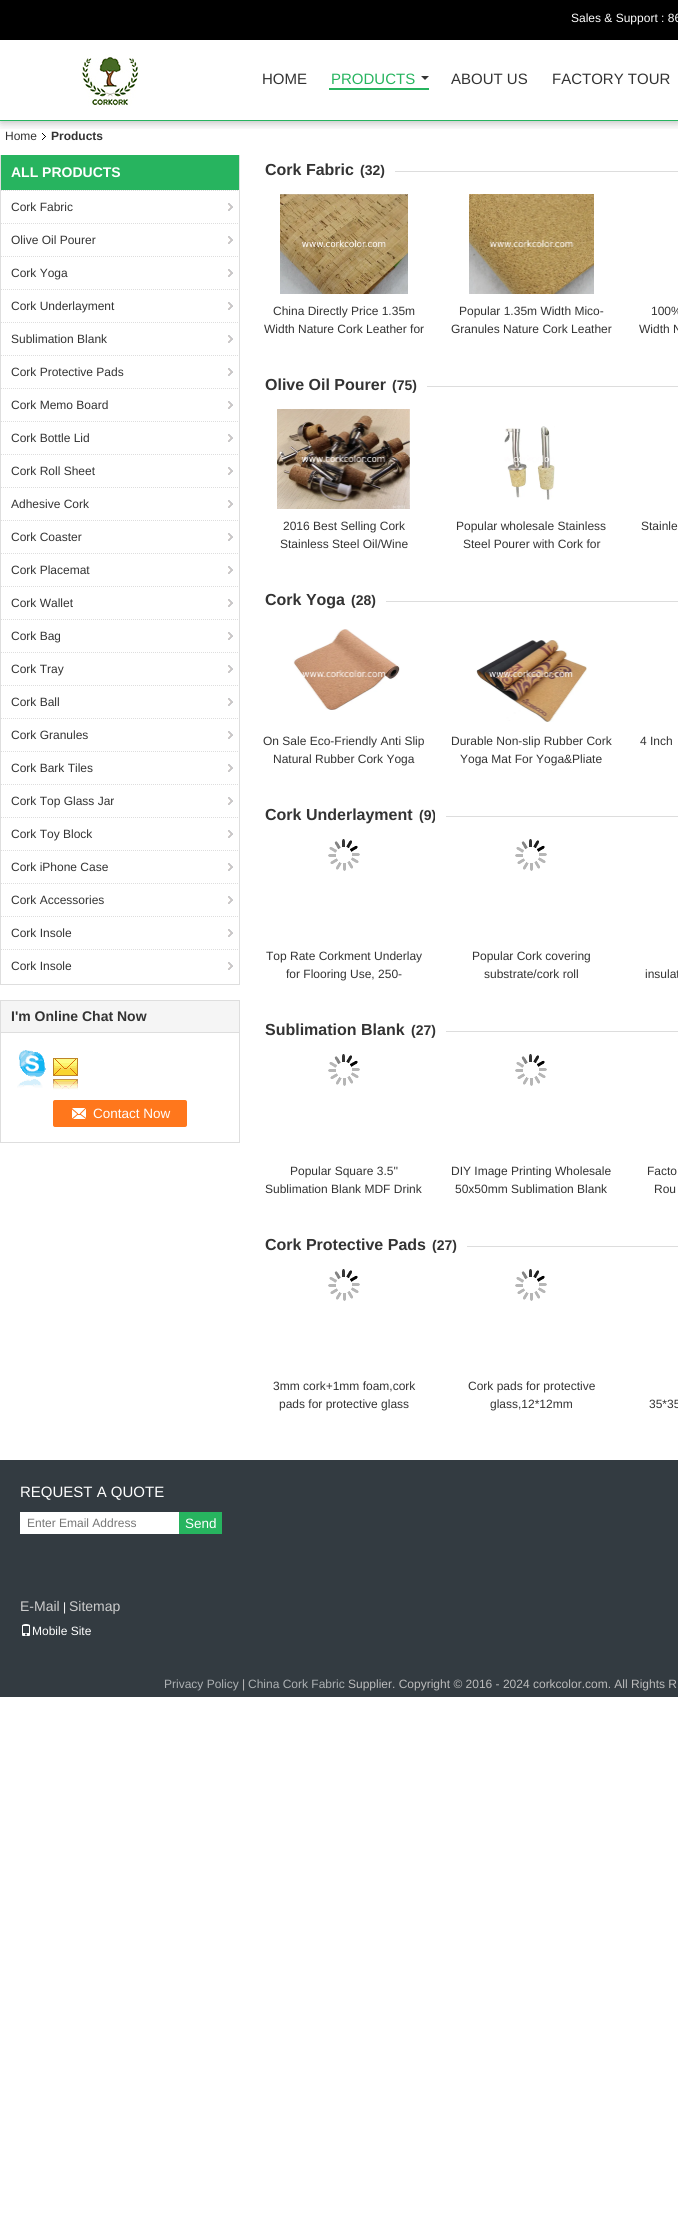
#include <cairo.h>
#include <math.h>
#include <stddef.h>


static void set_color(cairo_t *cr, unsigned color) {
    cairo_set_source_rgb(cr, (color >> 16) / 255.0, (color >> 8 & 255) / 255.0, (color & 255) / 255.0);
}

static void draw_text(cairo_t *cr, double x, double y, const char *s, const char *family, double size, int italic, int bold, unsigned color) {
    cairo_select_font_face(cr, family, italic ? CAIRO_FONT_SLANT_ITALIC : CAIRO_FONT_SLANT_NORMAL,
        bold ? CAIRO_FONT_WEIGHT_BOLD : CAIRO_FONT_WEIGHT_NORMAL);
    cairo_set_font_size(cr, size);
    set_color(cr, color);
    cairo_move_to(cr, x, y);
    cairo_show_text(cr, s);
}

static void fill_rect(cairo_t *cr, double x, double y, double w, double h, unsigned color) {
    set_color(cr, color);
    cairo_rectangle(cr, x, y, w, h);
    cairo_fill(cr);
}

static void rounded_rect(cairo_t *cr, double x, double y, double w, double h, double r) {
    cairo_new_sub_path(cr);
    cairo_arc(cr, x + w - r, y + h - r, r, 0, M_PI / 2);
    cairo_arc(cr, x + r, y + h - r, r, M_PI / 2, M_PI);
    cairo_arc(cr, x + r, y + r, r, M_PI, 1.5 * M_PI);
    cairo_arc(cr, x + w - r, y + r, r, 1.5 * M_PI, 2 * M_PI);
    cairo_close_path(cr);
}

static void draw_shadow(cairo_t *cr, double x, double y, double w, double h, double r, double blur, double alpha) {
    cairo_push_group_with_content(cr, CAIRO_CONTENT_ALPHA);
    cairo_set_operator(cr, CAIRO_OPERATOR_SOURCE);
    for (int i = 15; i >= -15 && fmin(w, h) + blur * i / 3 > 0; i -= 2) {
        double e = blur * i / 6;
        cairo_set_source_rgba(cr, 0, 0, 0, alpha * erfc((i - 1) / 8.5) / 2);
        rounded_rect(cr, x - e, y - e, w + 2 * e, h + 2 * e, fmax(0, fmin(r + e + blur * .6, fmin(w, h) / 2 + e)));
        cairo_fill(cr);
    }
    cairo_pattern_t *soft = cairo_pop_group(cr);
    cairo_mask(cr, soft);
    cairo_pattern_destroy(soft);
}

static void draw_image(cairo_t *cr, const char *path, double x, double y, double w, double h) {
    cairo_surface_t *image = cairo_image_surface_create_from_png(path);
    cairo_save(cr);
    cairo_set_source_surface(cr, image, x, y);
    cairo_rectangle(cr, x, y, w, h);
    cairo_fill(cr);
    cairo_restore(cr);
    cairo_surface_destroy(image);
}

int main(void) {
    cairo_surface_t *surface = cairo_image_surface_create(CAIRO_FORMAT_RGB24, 678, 2225);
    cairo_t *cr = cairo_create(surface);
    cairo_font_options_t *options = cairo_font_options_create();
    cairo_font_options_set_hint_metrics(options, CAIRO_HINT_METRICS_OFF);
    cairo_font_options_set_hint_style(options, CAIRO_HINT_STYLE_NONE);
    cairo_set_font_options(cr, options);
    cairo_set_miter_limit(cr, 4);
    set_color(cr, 0xFFFFFF);
    cairo_paint(cr);
    cairo_save(cr);
    cairo_rectangle(cr, 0, 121, 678, 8);
    cairo_clip(cr);
    set_color(cr, 0x000000);
    draw_shadow(cr, 1, 1, 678, 121, 0, 5, 0.3);
    cairo_restore(cr);
    fill_rect(cr, 0, 120, 678, 1, 0x27B45F);
    fill_rect(cr, 0, 0, 678, 40, 0x000000);
    draw_text(cr, 571, 22, "Sales & Support : 86", "Liberation Sans", 12, 0, 0, 0xFFFFFF);
    draw_image(cr, "assets/img1.png", 81, 55, 59, 52);
    draw_text(cr, 262, 84, "HOME", "Liberation Sans", 15, 0, 0, 0x333333);
    fill_rect(cr, 329, 88, 100, 2, 0x27B45F);
    draw_text(cr, 331, 84, "PRODUCTS", "Liberation Sans", 15, 0, 0, 0x27B45F);
    set_color(cr, 0x333333);
    cairo_new_path(cr);
    cairo_move_to(cr, 421, 76);
    cairo_line_to(cr, 429, 76);
    cairo_line_to(cr, 425, 80);
    cairo_close_path(cr);
    cairo_fill(cr);
    draw_text(cr, 451, 84, "ABOUT US", "Liberation Sans", 15, 0, 0, 0x333333);
    draw_text(cr, 552, 84, "FACTORY TOUR", "Liberation Sans", 15, 0, 0, 0x333333);
    draw_text(cr, 5, 140, "Home", "Liberation Sans", 12, 0, 0, 0x333333);
    draw_image(cr, "assets/img2.png", 42, 133, 4, 7);
    draw_text(cr, 51, 140, "Products", "Liberation Sans", 12, 0, 1, 0x333333);
    fill_rect(cr, 239, 155, 1, 830, 0xDEDEDE);
    fill_rect(cr, 0, 984, 240, 1, 0xDEDEDE);
    fill_rect(cr, 0, 155, 1, 830, 0xDEDEDE);
    fill_rect(cr, 1, 155, 238, 35, 0x27B45F);
    draw_text(cr, 11, 177, "ALL PRODUCTS", "Liberation Sans", 14, 0, 1, 0xFFFFFF);
    draw_image(cr, "assets/img3.png", 228, 203, 5, 8);
    cairo_new_path(cr);
    cairo_move_to(cr, 1, 190.5);
    cairo_line_to(cr, 241, 190.5);
    set_color(cr, 0xDEDEDE);
    cairo_set_line_width(cr, 1);
    cairo_set_dash(cr, (double[]){1, 1}, 2, 0);
    cairo_stroke(cr);
    draw_text(cr, 11, 211, "Cork Fabric", "Liberation Sans", 12, 0, 0, 0x333333);
    draw_image(cr, "assets/img3.png", 228, 236, 5, 8);
    cairo_new_path(cr);
    cairo_move_to(cr, 1, 223.5);
    cairo_line_to(cr, 241, 223.5);
    set_color(cr, 0xDEDEDE);
    cairo_stroke(cr);
    draw_text(cr, 11, 244, "Olive Oil Pourer", "Liberation Sans", 12, 0, 0, 0x333333);
    draw_image(cr, "assets/img3.png", 228, 269, 5, 8);
    cairo_new_path(cr);
    cairo_move_to(cr, 1, 256.5);
    cairo_line_to(cr, 241, 256.5);
    set_color(cr, 0xDEDEDE);
    cairo_stroke(cr);
    draw_text(cr, 11, 277, "Cork Yoga", "Liberation Sans", 12, 0, 0, 0x333333);
    draw_image(cr, "assets/img3.png", 228, 302, 5, 8);
    cairo_new_path(cr);
    cairo_move_to(cr, 1, 289.5);
    cairo_line_to(cr, 241, 289.5);
    set_color(cr, 0xDEDEDE);
    cairo_stroke(cr);
    draw_text(cr, 11, 310, "Cork Underlayment", "Liberation Sans", 12, 0, 0, 0x333333);
    draw_image(cr, "assets/img3.png", 228, 335, 5, 8);
    cairo_new_path(cr);
    cairo_move_to(cr, 1, 322.5);
    cairo_line_to(cr, 241, 322.5);
    set_color(cr, 0xDEDEDE);
    cairo_stroke(cr);
    draw_text(cr, 11, 343, "Sublimation Blank", "Liberation Sans", 12, 0, 0, 0x333333);
    draw_image(cr, "assets/img3.png", 228, 368, 5, 8);
    cairo_new_path(cr);
    cairo_move_to(cr, 1, 355.5);
    cairo_line_to(cr, 241, 355.5);
    set_color(cr, 0xDEDEDE);
    cairo_stroke(cr);
    draw_text(cr, 11, 376, "Cork Protective Pads", "Liberation Sans", 12, 0, 0, 0x333333);
    draw_image(cr, "assets/img3.png", 228, 401, 5, 8);
    cairo_new_path(cr);
    cairo_move_to(cr, 1, 388.5);
    cairo_line_to(cr, 241, 388.5);
    set_color(cr, 0xDEDEDE);
    cairo_stroke(cr);
    draw_text(cr, 11, 409, "Cork Memo Board", "Liberation Sans", 12, 0, 0, 0x333333);
    draw_image(cr, "assets/img3.png", 228, 434, 5, 8);
    cairo_new_path(cr);
    cairo_move_to(cr, 1, 421.5);
    cairo_line_to(cr, 241, 421.5);
    set_color(cr, 0xDEDEDE);
    cairo_stroke(cr);
    draw_text(cr, 11, 442, "Cork Bottle Lid", "Liberation Sans", 12, 0, 0, 0x333333);
    draw_image(cr, "assets/img3.png", 228, 467, 5, 8);
    cairo_new_path(cr);
    cairo_move_to(cr, 1, 454.5);
    cairo_line_to(cr, 241, 454.5);
    set_color(cr, 0xDEDEDE);
    cairo_stroke(cr);
    draw_text(cr, 11, 475, "Cork Roll Sheet", "Liberation Sans", 12, 0, 0, 0x333333);
    draw_image(cr, "assets/img3.png", 228, 500, 5, 8);
    cairo_new_path(cr);
    cairo_move_to(cr, 1, 487.5);
    cairo_line_to(cr, 241, 487.5);
    set_color(cr, 0xDEDEDE);
    cairo_stroke(cr);
    draw_text(cr, 11, 508, "Adhesive Cork", "Liberation Sans", 12, 0, 0, 0x333333);
    draw_image(cr, "assets/img3.png", 228, 533, 5, 8);
    cairo_new_path(cr);
    cairo_move_to(cr, 1, 520.5);
    cairo_line_to(cr, 241, 520.5);
    set_color(cr, 0xDEDEDE);
    cairo_stroke(cr);
    draw_text(cr, 11, 541, "Cork Coaster", "Liberation Sans", 12, 0, 0, 0x333333);
    draw_image(cr, "assets/img3.png", 228, 566, 5, 8);
    cairo_new_path(cr);
    cairo_move_to(cr, 1, 553.5);
    cairo_line_to(cr, 241, 553.5);
    set_color(cr, 0xDEDEDE);
    cairo_stroke(cr);
    draw_text(cr, 11, 574, "Cork Placemat", "Liberation Sans", 12, 0, 0, 0x333333);
    draw_image(cr, "assets/img3.png", 228, 599, 5, 8);
    cairo_new_path(cr);
    cairo_move_to(cr, 1, 586.5);
    cairo_line_to(cr, 241, 586.5);
    set_color(cr, 0xDEDEDE);
    cairo_stroke(cr);
    draw_text(cr, 11, 607, "Cork Wallet", "Liberation Sans", 12, 0, 0, 0x333333);
    draw_image(cr, "assets/img3.png", 228, 632, 5, 8);
    cairo_new_path(cr);
    cairo_move_to(cr, 1, 619.5);
    cairo_line_to(cr, 241, 619.5);
    set_color(cr, 0xDEDEDE);
    cairo_stroke(cr);
    draw_text(cr, 11, 640, "Cork Bag", "Liberation Sans", 12, 0, 0, 0x333333);
    draw_image(cr, "assets/img3.png", 228, 665, 5, 8);
    cairo_new_path(cr);
    cairo_move_to(cr, 1, 652.5);
    cairo_line_to(cr, 241, 652.5);
    set_color(cr, 0xDEDEDE);
    cairo_stroke(cr);
    draw_text(cr, 11, 673, "Cork Tray", "Liberation Sans", 12, 0, 0, 0x333333);
    draw_image(cr, "assets/img3.png", 228, 698, 5, 8);
    cairo_new_path(cr);
    cairo_move_to(cr, 1, 685.5);
    cairo_line_to(cr, 241, 685.5);
    set_color(cr, 0xDEDEDE);
    cairo_stroke(cr);
    draw_text(cr, 11, 706, "Cork Ball", "Liberation Sans", 12, 0, 0, 0x333333);
    draw_image(cr, "assets/img3.png", 228, 731, 5, 8);
    cairo_new_path(cr);
    cairo_move_to(cr, 1, 718.5);
    cairo_line_to(cr, 241, 718.5);
    set_color(cr, 0xDEDEDE);
    cairo_stroke(cr);
    draw_text(cr, 11, 739, "Cork Granules", "Liberation Sans", 12, 0, 0, 0x333333);
    draw_image(cr, "assets/img3.png", 228, 764, 5, 8);
    cairo_new_path(cr);
    cairo_move_to(cr, 1, 751.5);
    cairo_line_to(cr, 241, 751.5);
    set_color(cr, 0xDEDEDE);
    cairo_stroke(cr);
    draw_text(cr, 11, 772, "Cork Bark Tiles", "Liberation Sans", 12, 0, 0, 0x333333);
    draw_image(cr, "assets/img3.png", 228, 797, 5, 8);
    cairo_new_path(cr);
    cairo_move_to(cr, 1, 784.5);
    cairo_line_to(cr, 241, 784.5);
    set_color(cr, 0xDEDEDE);
    cairo_stroke(cr);
    draw_text(cr, 11, 805, "Cork Top Glass Jar", "Liberation Sans", 12, 0, 0, 0x333333);
    draw_image(cr, "assets/img3.png", 228, 830, 5, 8);
    cairo_new_path(cr);
    cairo_move_to(cr, 1, 817.5);
    cairo_line_to(cr, 241, 817.5);
    set_color(cr, 0xDEDEDE);
    cairo_stroke(cr);
    draw_text(cr, 11, 838, "Cork Toy Block", "Liberation Sans", 12, 0, 0, 0x333333);
    draw_image(cr, "assets/img3.png", 228, 863, 5, 8);
    cairo_new_path(cr);
    cairo_move_to(cr, 1, 850.5);
    cairo_line_to(cr, 241, 850.5);
    set_color(cr, 0xDEDEDE);
    cairo_stroke(cr);
    draw_text(cr, 11, 871, "Cork iPhone Case", "Liberation Sans", 12, 0, 0, 0x333333);
    draw_image(cr, "assets/img3.png", 228, 896, 5, 8);
    cairo_new_path(cr);
    cairo_move_to(cr, 1, 883.5);
    cairo_line_to(cr, 241, 883.5);
    set_color(cr, 0xDEDEDE);
    cairo_stroke(cr);
    draw_text(cr, 11, 904, "Cork Accessories", "Liberation Sans", 12, 0, 0, 0x333333);
    draw_image(cr, "assets/img3.png", 228, 929, 5, 8);
    cairo_new_path(cr);
    cairo_move_to(cr, 1, 916.5);
    cairo_line_to(cr, 241, 916.5);
    set_color(cr, 0xDEDEDE);
    cairo_stroke(cr);
    draw_text(cr, 11, 937, "Cork Insole", "Liberation Sans", 12, 0, 0, 0x333333);
    draw_image(cr, "assets/img3.png", 228, 962, 5, 8);
    cairo_new_path(cr);
    cairo_move_to(cr, 1, 949.5);
    cairo_line_to(cr, 241, 949.5);
    set_color(cr, 0xDEDEDE);
    cairo_stroke(cr);
    draw_text(cr, 11, 970, "Cork Insole", "Liberation Sans", 12, 0, 0, 0x333333);
    cairo_rectangle(cr, 0.5, 1000.5, 239, 142);
    set_color(cr, 0xDEDEDE);
    cairo_set_dash(cr, NULL, 0, 0);
    cairo_stroke(cr);
    fill_rect(cr, 1, 1001, 238, 31, 0xF5F5F5);
    fill_rect(cr, 1, 1032, 238, 1, 0xDEDEDE);
    draw_text(cr, 11, 1021, "I'm Online Chat Now", "Liberation Sans", 14, 0, 1, 0x333333);
    draw_image(cr, "assets/img4.png", 17, 1050, 29, 38);
    draw_image(cr, "assets/img5.png", 53, 1058, 25, 32);
    set_color(cr, 0xFF771C);
    rounded_rect(cr, 53, 1100, 134, 27, 2);
    cairo_fill(cr);
    draw_image(cr, "assets/img6.png", 72, 1108, 14, 11);
    draw_text(cr, 93, 1118, "Contact Now", "Liberation Sans", 13.5, 0, 0, 0xFFFFFF);
    fill_rect(cr, 395, 171, 283, 1, 0xDDDDDD);
    draw_text(cr, 265, 175, "Cork Fabric", "Liberation Sans", 16, 0, 1, 0x333333);
    draw_text(cr, 360, 175, "(32)", "Liberation Sans", 14, 0, 1, 0x333333);
    draw_image(cr, "assets/img7.png", 280, 194, 128, 100);
    draw_text(cr, 273, 315, "China Directly Price 1.35m", "Liberation Sans", 12, 0, 0, 0x333333);
    draw_text(cr, 264, 333, "Width Nature Cork Leather for", "Liberation Sans", 12, 0, 0, 0x333333);
    draw_image(cr, "assets/img8.png", 469, 194, 125, 100);
    draw_text(cr, 459, 315, "Popular 1.35m Width Mico-", "Liberation Sans", 12, 0, 0, 0x333333);
    draw_text(cr, 451, 333, "Granules Nature Cork Leather", "Liberation Sans", 12, 0, 0, 0x333333);
    draw_text(cr, 651, 315, "100%", "Liberation Sans", 12, 0, 0, 0x333333);
    draw_text(cr, 639, 333, "Width N", "Liberation Sans", 12, 0, 0, 0x333333);
    fill_rect(cr, 427, 386, 251, 1, 0xDDDDDD);
    draw_text(cr, 265, 390, "Olive Oil Pourer", "Liberation Sans", 16, 0, 1, 0x333333);
    draw_text(cr, 392, 390, "(75)", "Liberation Sans", 14, 0, 1, 0x333333);
    draw_image(cr, "assets/img9.png", 277, 409, 133, 100);
    draw_text(cr, 283, 530, "2016 Best Selling Cork", "Liberation Sans", 12, 0, 0, 0x333333);
    draw_text(cr, 280, 548, "Stainless Steel Oil/Wine", "Liberation Sans", 12, 0, 0, 0x333333);
    draw_image(cr, "assets/img10.png", 504, 426, 51, 74);
    draw_text(cr, 456, 530, "Popular wholesale Stainless", "Liberation Sans", 12, 0, 0, 0x333333);
    draw_text(cr, 463, 548, "Steel Pourer with Cork for", "Liberation Sans", 12, 0, 0, 0x333333);
    draw_text(cr, 641, 530, "Stainle", "Liberation Sans", 12, 0, 0, 0x333333);
    fill_rect(cr, 386, 601, 292, 1, 0xDDDDDD);
    draw_text(cr, 265, 605, "Cork Yoga", "Liberation Sans", 16, 0, 1, 0x333333);
    draw_text(cr, 351, 605, "(28)", "Liberation Sans", 14, 0, 1, 0x333333);
    draw_image(cr, "assets/img11.png", 293, 629, 107, 81);
    draw_text(cr, 263, 745, "On Sale Eco-Friendly Anti Slip", "Liberation Sans", 12, 0, 0, 0x333333);
    draw_text(cr, 273, 763, "Natural Rubber Cork Yoga", "Liberation Sans", 12, 0, 0, 0x333333);
    draw_image(cr, "assets/img12.png", 476, 640, 111, 82);
    draw_text(cr, 451, 745, "Durable Non-slip Rubber Cork", "Liberation Sans", 12, 0, 0, 0x333333);
    draw_text(cr, 460, 763, "Yoga Mat For Yoga&Pliate", "Liberation Sans", 12, 0, 0, 0x333333);
    draw_text(cr, 640, 745, "4 Inch", "Liberation Sans", 12, 0, 0, 0x333333);
    fill_rect(cr, 446, 816, 232, 1, 0xDDDDDD);
    draw_text(cr, 265, 820, "Cork Underlayment", "Liberation Sans", 16, 0, 1, 0x333333);
    draw_text(cr, 419, 820, "(9)", "Liberation Sans", 14, 0, 1, 0x333333);
    draw_image(cr, "assets/img13.png", 328, 839, 32, 32);
    draw_text(cr, 266, 960, "Top Rate Corkment Underlay", "Liberation Sans", 12, 0, 0, 0x333333);
    draw_text(cr, 286, 978, "for Flooring Use, 250-", "Liberation Sans", 12, 0, 0, 0x333333);
    draw_image(cr, "assets/img13.png", 515, 839, 32, 32);
    draw_text(cr, 472, 960, "Popular Cork covering", "Liberation Sans", 12, 0, 0, 0x333333);
    draw_text(cr, 484, 978, "substrate/cork roll", "Liberation Sans", 12, 0, 0, 0x333333);
    draw_text(cr, 645, 978, "insulat", "Liberation Sans", 12, 0, 0, 0x333333);
    fill_rect(cr, 446, 1031, 232, 1, 0xDDDDDD);
    draw_text(cr, 265, 1035, "Sublimation Blank", "Liberation Sans", 16, 0, 1, 0x333333);
    draw_text(cr, 411, 1035, "(27)", "Liberation Sans", 14, 0, 1, 0x333333);
    draw_image(cr, "assets/img13.png", 328, 1054, 32, 32);
    draw_text(cr, 290, 1175, "Popular Square 3.5''", "Liberation Sans", 12, 0, 0, 0x333333);
    draw_text(cr, 265, 1193, "Sublimation Blank MDF Drink", "Liberation Sans", 12, 0, 0, 0x333333);
    draw_image(cr, "assets/img13.png", 515, 1054, 32, 32);
    draw_text(cr, 451, 1175, "DIY Image Printing Wholesale", "Liberation Sans", 12, 0, 0, 0x333333);
    draw_text(cr, 455, 1193, "50x50mm Sublimation Blank", "Liberation Sans", 12, 0, 0, 0x333333);
    draw_text(cr, 647, 1175, "Facto", "Liberation Sans", 12, 0, 0, 0x333333);
    draw_text(cr, 654, 1193, "Rou", "Liberation Sans", 12, 0, 0, 0x333333);
    fill_rect(cr, 467, 1246, 211, 1, 0xDDDDDD);
    draw_text(cr, 265, 1250, "Cork Protective Pads", "Liberation Sans", 16, 0, 1, 0x333333);
    draw_text(cr, 432, 1250, "(27)", "Liberation Sans", 14, 0, 1, 0x333333);
    draw_image(cr, "assets/img13.png", 328, 1269, 32, 32);
    draw_text(cr, 273, 1390, "3mm cork+1mm foam,cork", "Liberation Sans", 12, 0, 0, 0x333333);
    draw_text(cr, 279, 1408, "pads for protective glass", "Liberation Sans", 12, 0, 0, 0x333333);
    draw_image(cr, "assets/img13.png", 515, 1269, 32, 32);
    draw_text(cr, 468, 1390, "Cork pads for protective", "Liberation Sans", 12, 0, 0, 0x333333);
    draw_text(cr, 490, 1408, "glass,12*12mm", "Liberation Sans", 12, 0, 0, 0x333333);
    draw_text(cr, 649, 1408, "35*35", "Liberation Sans", 12, 0, 0, 0x333333);
    fill_rect(cr, 0, 1460, 678, 237, 0x333B41);
    draw_text(cr, 20, 1497, "REQUEST A QUOTE", "Liberation Sans", 15, 0, 0, 0xFFFFFF);
    fill_rect(cr, 20, 1512, 159, 22, 0xFFFFFF);
    draw_text(cr, 27, 1527, "Enter Email Address", "Liberation Sans", 12, 0, 0, 0x757575);
    fill_rect(cr, 179, 1512, 43, 22, 0x27B45F);
    draw_text(cr, 185, 1528, "Send", "Liberation Sans", 13.5, 0, 0, 0xFFFFFF);
    draw_text(cr, 20, 1611, "E-Mail", "Liberation Sans", 14, 0, 0, 0xCCCCCC);
    draw_text(cr, 63, 1611, "|", "Liberation Sans", 12, 0, 0, 0xFFFFFF);
    draw_text(cr, 69, 1611, "Sitemap", "Liberation Sans", 14, 0, 0, 0xCCCCCC);
    draw_image(cr, "assets/img14.png", 22, 1624, 8, 12);
    draw_text(cr, 32, 1635, "Mobile Site", "Liberation Sans", 12, 0, 0, 0xFFFFFF);
    draw_text(cr, 164, 1688, "Privacy Policy", "Liberation Sans", 12, 0, 0, 0xADB1B3);
    draw_text(cr, 242, 1688, "|", "Liberation Sans", 12, 0, 0, 0xBBBBBB);
    draw_text(cr, 248, 1688, "China Cork Fabric", "Liberation Sans", 12, 0, 0, 0xADB1B3);
    draw_text(cr, 348, 1688, "Supplier. Copyright © 2016 - 2024 corkcolor.com. All Rights R", "Liberation Sans", 12, 0, 0, 0xBBBBBB);
    cairo_surface_write_to_png(surface, "output.png");
    cairo_font_options_destroy(options);
    cairo_destroy(cr);
    cairo_surface_destroy(surface);
    return 0;
}
